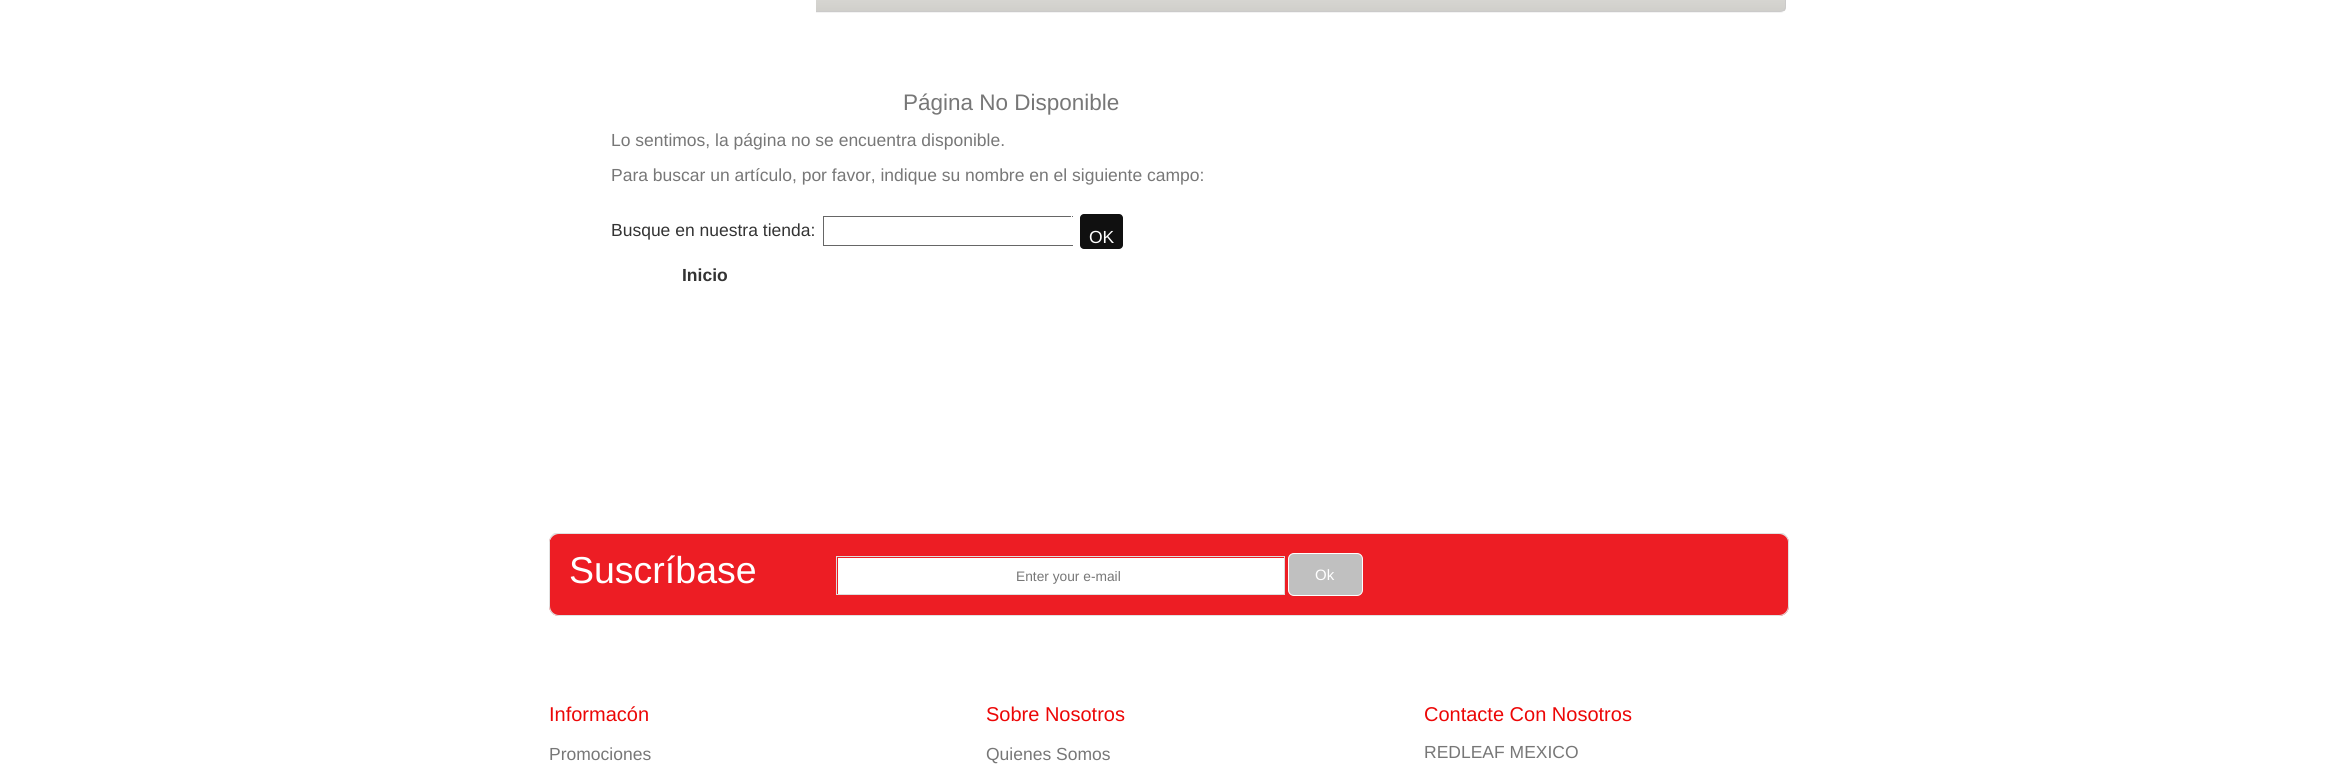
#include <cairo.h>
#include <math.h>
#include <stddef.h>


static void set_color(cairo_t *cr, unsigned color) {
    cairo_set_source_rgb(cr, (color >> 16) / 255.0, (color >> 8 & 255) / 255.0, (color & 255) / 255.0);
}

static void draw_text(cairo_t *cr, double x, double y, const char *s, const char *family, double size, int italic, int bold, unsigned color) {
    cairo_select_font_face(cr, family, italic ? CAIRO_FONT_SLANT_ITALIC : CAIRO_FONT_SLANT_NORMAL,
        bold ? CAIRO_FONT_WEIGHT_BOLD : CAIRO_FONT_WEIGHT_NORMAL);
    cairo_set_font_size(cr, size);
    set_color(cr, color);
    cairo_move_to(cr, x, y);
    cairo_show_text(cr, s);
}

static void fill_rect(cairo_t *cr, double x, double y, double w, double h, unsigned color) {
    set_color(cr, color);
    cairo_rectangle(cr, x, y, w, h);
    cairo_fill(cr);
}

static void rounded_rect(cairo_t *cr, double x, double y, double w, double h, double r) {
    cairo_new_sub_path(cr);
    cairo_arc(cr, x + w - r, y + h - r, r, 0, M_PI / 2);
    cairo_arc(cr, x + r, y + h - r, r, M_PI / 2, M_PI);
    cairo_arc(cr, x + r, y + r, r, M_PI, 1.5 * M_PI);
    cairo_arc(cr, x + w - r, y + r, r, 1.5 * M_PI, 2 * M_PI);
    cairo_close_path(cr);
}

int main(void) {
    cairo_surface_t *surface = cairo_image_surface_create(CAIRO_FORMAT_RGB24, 2347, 767);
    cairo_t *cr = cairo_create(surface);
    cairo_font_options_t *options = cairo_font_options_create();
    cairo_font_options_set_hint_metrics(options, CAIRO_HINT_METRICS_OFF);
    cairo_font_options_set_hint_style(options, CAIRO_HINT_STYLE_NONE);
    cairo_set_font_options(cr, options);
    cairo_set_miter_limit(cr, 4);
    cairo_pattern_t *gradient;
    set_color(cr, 0xFFFFFF);
    cairo_paint(cr);
    cairo_save(cr);
    cairo_new_path(cr);
    cairo_move_to(cr, 816, -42);
    cairo_line_to(cr, 1780, -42);
    cairo_curve_to(cr, 1783.5, -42, 1786, -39.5, 1786, -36);
    cairo_line_to(cr, 1786, 7);
    cairo_curve_to(cr, 1786, 10.5, 1783.5, 13, 1780, 13);
    cairo_line_to(cr, 816, 13);
    cairo_close_path(cr);
    cairo_clip(cr);
    gradient = cairo_pattern_create_linear(1301, -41, 1301, 11);
    cairo_pattern_add_color_stop_rgba(gradient, 0, 0.957, 0.957, 0.957, 1);
    cairo_pattern_add_color_stop_rgba(gradient, 0.72, 0.847, 0.843, 0.827, 1);
    cairo_pattern_add_color_stop_rgba(gradient, 1, 0.816, 0.812, 0.796, 1);
    cairo_set_source(cr, gradient);
    cairo_pattern_destroy(gradient);
    cairo_rectangle(cr, 816, 0, 970, 11);
    cairo_fill(cr);
    gradient = cairo_pattern_create_linear(1301, 11, 1301, 64);
    cairo_pattern_add_color_stop_rgba(gradient, 0, 0.957, 0.957, 0.957, 1);
    cairo_pattern_add_color_stop_rgba(gradient, 0.72, 0.847, 0.843, 0.827, 1);
    cairo_pattern_add_color_stop_rgba(gradient, 1, 0.816, 0.812, 0.796, 1);
    cairo_set_source(cr, gradient);
    cairo_pattern_destroy(gradient);
    cairo_rectangle(cr, 816, 11, 970, 2);
    cairo_fill(cr);
    cairo_restore(cr);
    set_color(cr, 0xCBCACA);
    cairo_set_fill_rule(cr, CAIRO_FILL_RULE_EVEN_ODD);
    cairo_new_path(cr);
    cairo_move_to(cr, 816, -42);
    cairo_line_to(cr, 1780, -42);
    cairo_curve_to(cr, 1783, -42, 1786, -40, 1786, -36);
    cairo_line_to(cr, 1786, 6);
    cairo_curve_to(cr, 1786, 10, 1783, 12, 1780, 12);
    cairo_line_to(cr, 816, 12);
    cairo_close_path(cr);
    cairo_move_to(cr, 816, -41);
    cairo_line_to(cr, 1780, -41);
    cairo_curve_to(cr, 1783, -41, 1785, -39, 1785, -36);
    cairo_line_to(cr, 1785, 6);
    cairo_curve_to(cr, 1785, 9, 1783, 11, 1780, 11);
    cairo_line_to(cr, 816, 11);
    cairo_close_path(cr);
    cairo_fill(cr);
    draw_text(cr, 903, 110, "Página No Disponible", "Liberation Sans", 22.5, 0, 0, 0x777777);
    draw_text(cr, 611, 146, "Lo sentimos, la página no se encuentra disponible.", "Liberation Sans", 17.5, 0, 0, 0x777777);
    draw_text(cr, 611, 181, "Para buscar un artículo, por favor, indique su nombre en el siguiente campo:", "Liberation Sans", 17.5, 0, 0, 0x777777);
    draw_text(cr, 611, 236, "Busque en nuestra tienda:", "Liberation Sans", 17.5, 0, 0, 0x333333);
    fill_rect(cr, 823, 216, 250, 1, 0x666666);
    fill_rect(cr, 1071, 216, 1, 1, 0xFFFFFF);
    fill_rect(cr, 823, 245, 250, 1, 0x666666);
    fill_rect(cr, 823, 216, 1, 30, 0x666666);
    set_color(cr, 0x101010);
    rounded_rect(cr, 1080, 214, 43, 35, 4);
    cairo_fill(cr);
    draw_text(cr, 1089, 243, "OK", "Liberation Sans", 17.5, 0, 0, 0xFFFFFF);
    draw_text(cr, 682, 281, "Inicio", "Liberation Sans", 17.5, 0, 1, 0x333333);
    set_color(cr, 0xED1D24);
    cairo_new_path(cr);
    cairo_move_to(cr, 559, 533);
    cairo_line_to(cr, 1413, 533);
    cairo_line_to(cr, 1413, 616);
    cairo_line_to(cr, 559, 616);
    cairo_curve_to(cr, 553.5, 616, 549, 611.5, 549, 606);
    cairo_line_to(cr, 549, 543);
    cairo_curve_to(cr, 549, 537.5, 553.5, 533, 559, 533);
    cairo_close_path(cr);
    cairo_fill(cr);
    cairo_save(cr);
    cairo_set_fill_rule(cr, CAIRO_FILL_RULE_WINDING);
    cairo_rectangle(cr, 549, 533, 1250, 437);
    cairo_clip(cr);
    set_color(cr, 0xE1E1E1);
    cairo_set_fill_rule(cr, CAIRO_FILL_RULE_EVEN_ODD);
    cairo_new_path(cr);
    cairo_move_to(cr, 559, 532);
    cairo_line_to(cr, 1412, 532);
    cairo_line_to(cr, 1412, 616);
    cairo_line_to(cr, 559, 616);
    cairo_curve_to(cr, 553, 616, 549, 612, 549, 606);
    cairo_line_to(cr, 549, 542);
    cairo_curve_to(cr, 549, 537, 553, 532, 559, 532);
    cairo_close_path(cr);
    cairo_move_to(cr, 559, 534);
    cairo_line_to(cr, 1412, 534);
    cairo_line_to(cr, 1412, 615);
    cairo_line_to(cr, 559, 615);
    cairo_curve_to(cr, 554, 615, 550, 611, 550, 606);
    cairo_line_to(cr, 550, 542);
    cairo_curve_to(cr, 550, 538, 554, 534, 559, 534);
    cairo_close_path(cr);
    cairo_fill(cr);
    cairo_restore(cr);
    fill_rect(cr, 550, 540, 1, 2, 0xED1D24);
    draw_text(cr, 569, 583, "Suscríbase", "Liberation Sans", 37.5, 0, 0, 0xFFFFFF);
    fill_rect(cr, 838, 558, 446, 36, 0xFFFFFF);
    cairo_rectangle(cr, 836.5, 556.5, 448, 38);
    set_color(cr, 0xDDDDDD);
    cairo_set_line_width(cr, 1);
    cairo_stroke(cr);
    draw_text(cr, 1016, 581, "Enter your e-mail", "Liberation Sans", 13.75, 0, 0, 0x777777);
    set_color(cr, 0xC0C0C0);
    rounded_rect(cr, 1288.5, 553.5, 74, 42, 5.5);
    cairo_fill_preserve(cr);
    set_color(cr, 0xFFFFFF);
    cairo_stroke(cr);
    draw_text(cr, 1315, 580, "Ok", "Liberation Sans", 15, 0, 0, 0xFFFFFF);
    set_color(cr, 0xED1D24);
    cairo_new_path(cr);
    cairo_move_to(cr, 1413, 533);
    cairo_line_to(cr, 1779, 533);
    cairo_curve_to(cr, 1784.5, 533, 1789, 537.5, 1789, 543);
    cairo_line_to(cr, 1789, 606);
    cairo_curve_to(cr, 1789, 611.5, 1784.5, 616, 1779, 616);
    cairo_line_to(cr, 1413, 616);
    cairo_close_path(cr);
    cairo_fill(cr);
    cairo_save(cr);
    cairo_set_fill_rule(cr, CAIRO_FILL_RULE_WINDING);
    cairo_rectangle(cr, 549, 533, 1250, 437);
    cairo_clip(cr);
    set_color(cr, 0xE1E1E1);
    cairo_set_fill_rule(cr, CAIRO_FILL_RULE_EVEN_ODD);
    cairo_new_path(cr);
    cairo_move_to(cr, 1412, 532);
    cairo_line_to(cr, 1779, 532);
    cairo_curve_to(cr, 1784, 532, 1789, 537, 1789, 542);
    cairo_line_to(cr, 1789, 606);
    cairo_curve_to(cr, 1789, 612, 1784, 616, 1779, 616);
    cairo_line_to(cr, 1412, 616);
    cairo_close_path(cr);
    cairo_move_to(cr, 1412, 534);
    cairo_line_to(cr, 1779, 534);
    cairo_curve_to(cr, 1784, 534, 1788, 538, 1788, 542);
    cairo_line_to(cr, 1788, 606);
    cairo_curve_to(cr, 1788, 611, 1784, 615, 1779, 615);
    cairo_line_to(cr, 1412, 615);
    cairo_close_path(cr);
    cairo_fill(cr);
    cairo_restore(cr);
    draw_text(cr, 549, 721, "Informacón", "Liberation Sans", 20, 0, 0, 0xEC0606);
    draw_text(cr, 549, 760, "Promociones", "Liberation Sans", 17.5, 0, 0, 0x777777);
    draw_text(cr, 986, 721, "Sobre Nosotros", "Liberation Sans", 20, 0, 0, 0xEC0606);
    draw_text(cr, 986, 760, "Quienes Somos", "Liberation Sans", 17.5, 0, 0, 0x777777);
    draw_text(cr, 1424, 721, "Contacte Con Nosotros", "Liberation Sans", 20, 0, 0, 0xEC0606);
    draw_text(cr, 1424, 758, "REDLEAF MEXICO", "Liberation Sans", 17.5, 0, 0, 0x777777);
    cairo_surface_write_to_png(surface, "output.png");
    cairo_font_options_destroy(options);
    cairo_destroy(cr);
    cairo_surface_destroy(surface);
    return 0;
}
